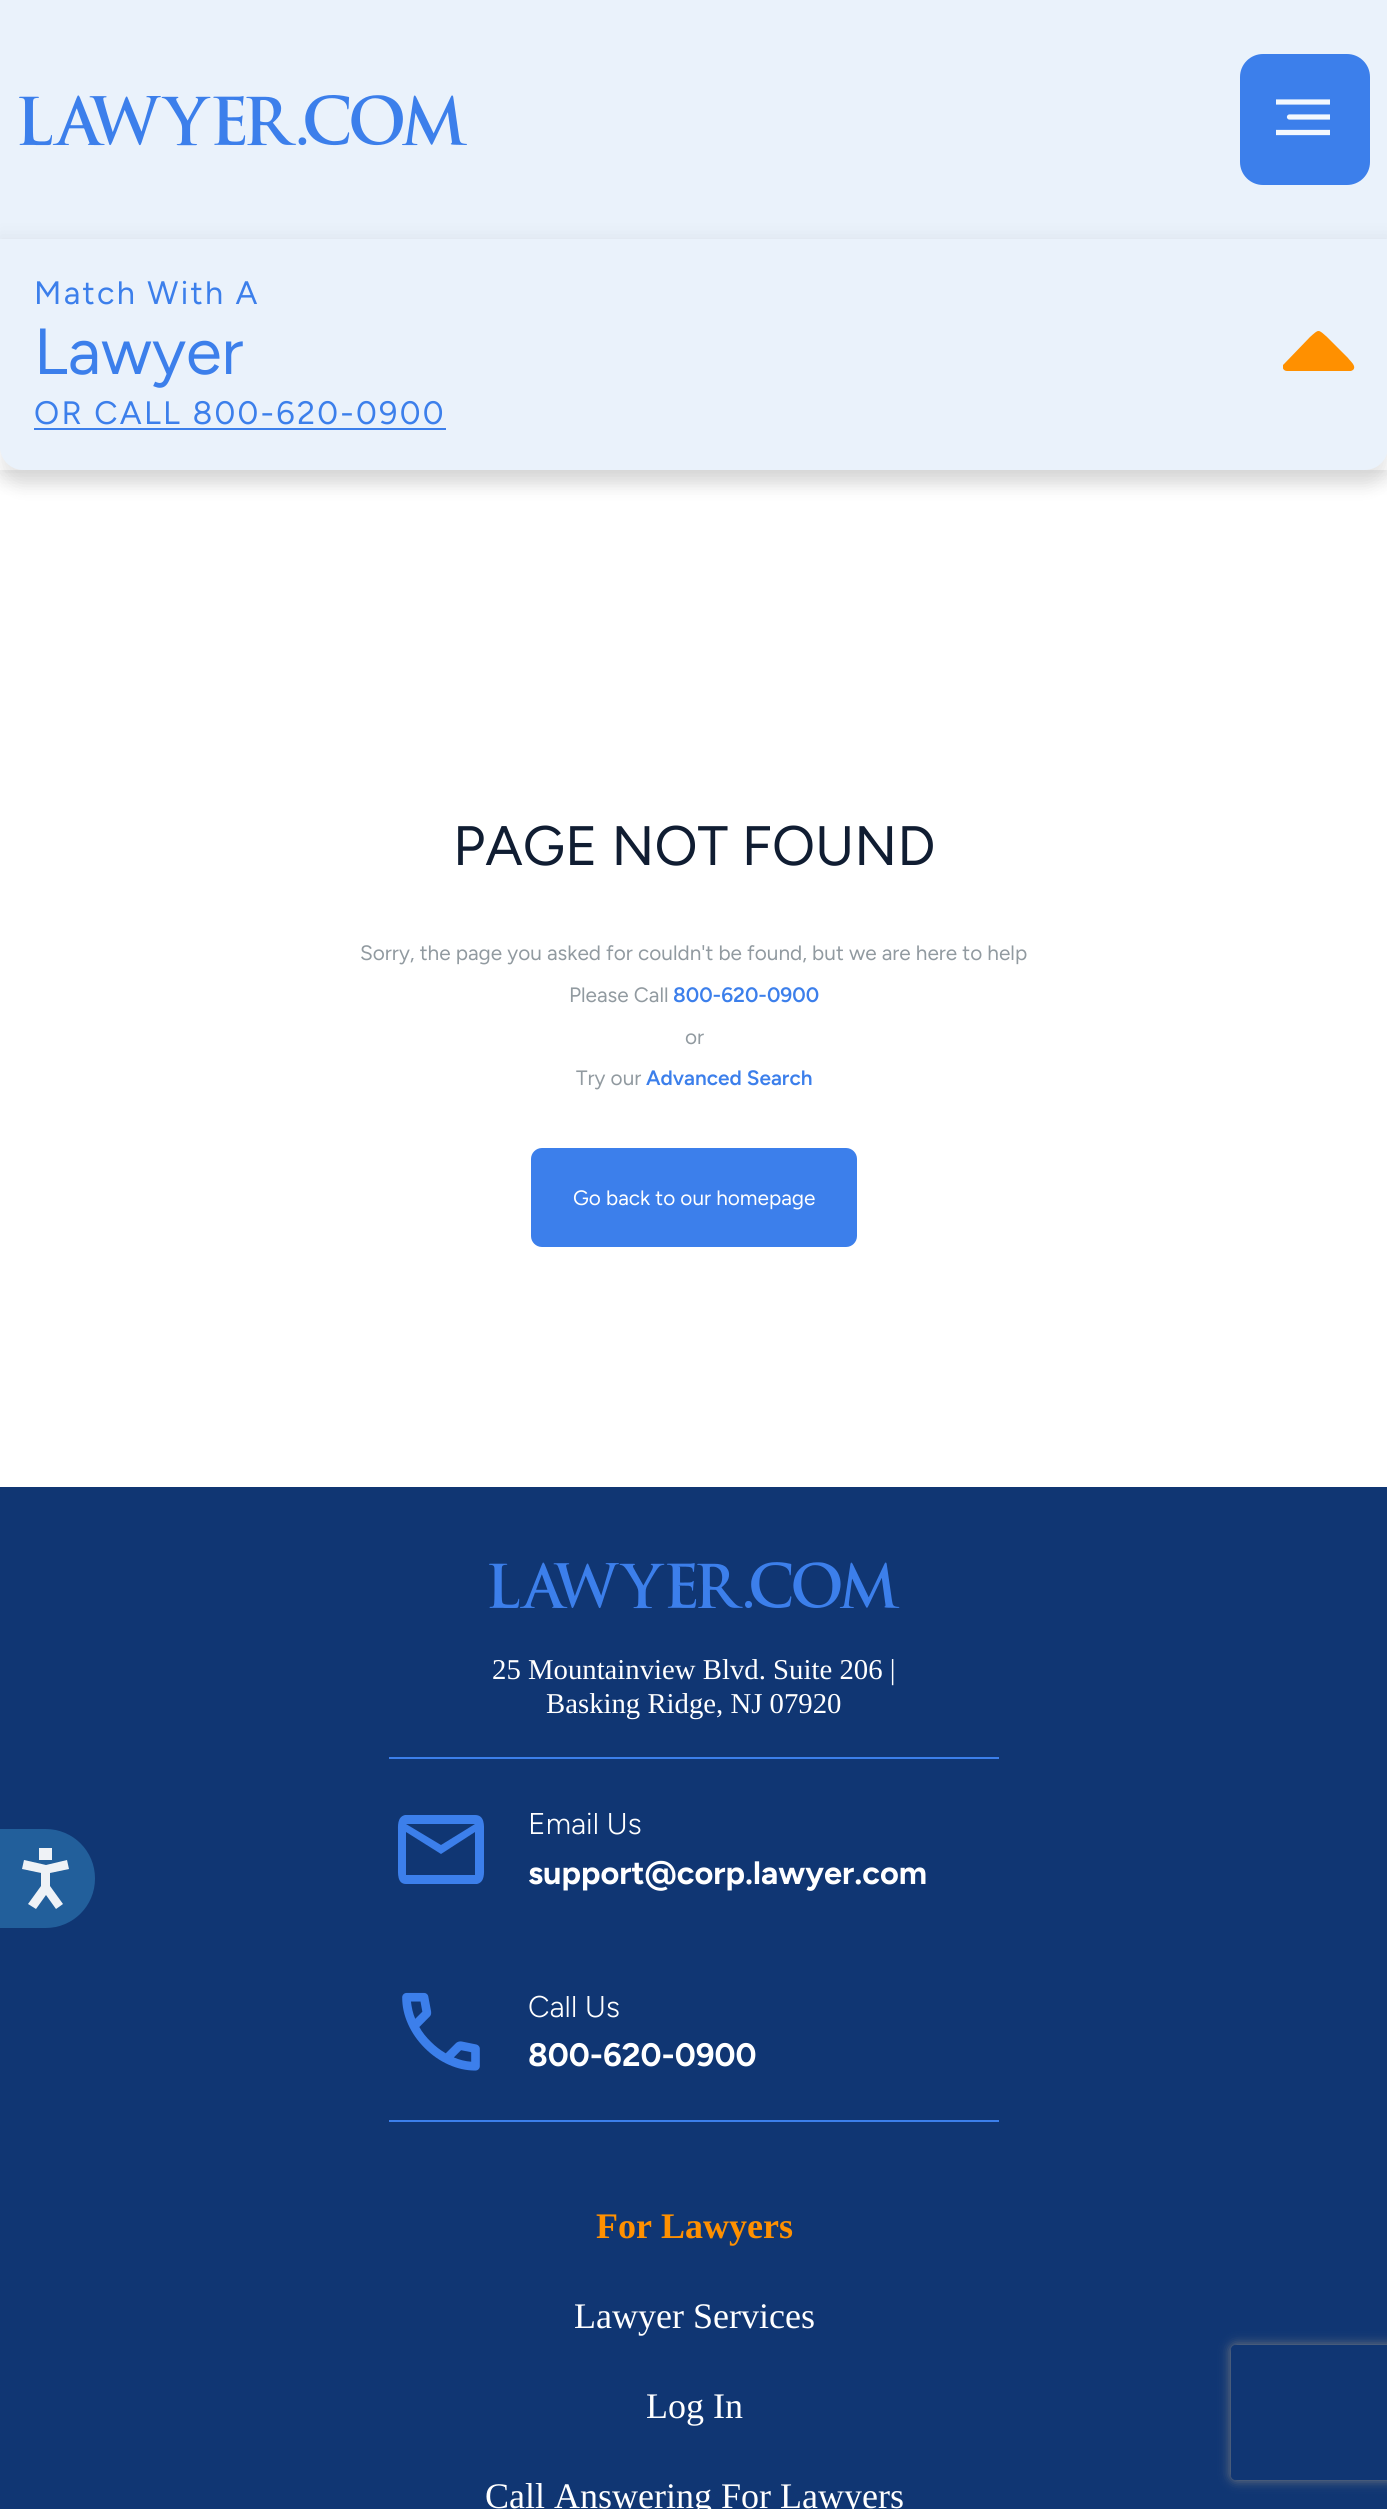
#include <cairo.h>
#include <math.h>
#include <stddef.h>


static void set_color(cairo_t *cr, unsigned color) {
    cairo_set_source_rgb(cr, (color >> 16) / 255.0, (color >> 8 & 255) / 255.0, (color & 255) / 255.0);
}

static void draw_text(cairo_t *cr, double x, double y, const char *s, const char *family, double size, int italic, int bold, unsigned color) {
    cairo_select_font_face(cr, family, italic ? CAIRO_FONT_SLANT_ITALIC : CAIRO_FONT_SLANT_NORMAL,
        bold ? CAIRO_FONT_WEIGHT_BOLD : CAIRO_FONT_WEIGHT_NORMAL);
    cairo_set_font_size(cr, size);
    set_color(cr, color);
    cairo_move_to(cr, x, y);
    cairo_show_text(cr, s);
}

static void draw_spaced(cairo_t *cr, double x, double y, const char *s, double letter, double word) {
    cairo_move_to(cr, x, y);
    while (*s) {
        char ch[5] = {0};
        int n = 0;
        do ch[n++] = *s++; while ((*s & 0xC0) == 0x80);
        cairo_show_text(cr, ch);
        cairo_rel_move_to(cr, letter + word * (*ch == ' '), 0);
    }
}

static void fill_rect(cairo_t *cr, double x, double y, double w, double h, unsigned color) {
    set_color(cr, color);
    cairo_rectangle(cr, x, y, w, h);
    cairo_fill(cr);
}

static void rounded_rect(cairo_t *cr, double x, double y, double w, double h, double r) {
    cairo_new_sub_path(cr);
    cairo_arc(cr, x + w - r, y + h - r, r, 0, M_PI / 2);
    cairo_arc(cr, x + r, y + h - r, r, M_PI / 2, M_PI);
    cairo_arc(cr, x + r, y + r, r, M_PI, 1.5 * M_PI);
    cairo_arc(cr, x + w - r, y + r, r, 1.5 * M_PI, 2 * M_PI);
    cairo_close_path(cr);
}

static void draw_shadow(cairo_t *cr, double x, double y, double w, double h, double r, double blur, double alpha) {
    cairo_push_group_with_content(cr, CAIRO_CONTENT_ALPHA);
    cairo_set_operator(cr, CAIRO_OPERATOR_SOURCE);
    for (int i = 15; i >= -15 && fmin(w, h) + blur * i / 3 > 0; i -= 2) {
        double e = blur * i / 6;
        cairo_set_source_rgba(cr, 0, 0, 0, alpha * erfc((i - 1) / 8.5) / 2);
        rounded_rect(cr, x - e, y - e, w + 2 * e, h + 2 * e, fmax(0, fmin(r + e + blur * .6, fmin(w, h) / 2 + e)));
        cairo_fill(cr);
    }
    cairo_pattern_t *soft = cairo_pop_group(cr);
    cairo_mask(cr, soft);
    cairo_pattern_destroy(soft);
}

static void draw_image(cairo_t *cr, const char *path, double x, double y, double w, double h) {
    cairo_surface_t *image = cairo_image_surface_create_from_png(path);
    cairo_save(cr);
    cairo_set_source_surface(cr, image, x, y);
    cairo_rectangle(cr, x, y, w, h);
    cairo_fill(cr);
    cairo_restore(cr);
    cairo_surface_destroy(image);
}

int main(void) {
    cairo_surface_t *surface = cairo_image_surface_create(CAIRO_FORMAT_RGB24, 1387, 2509);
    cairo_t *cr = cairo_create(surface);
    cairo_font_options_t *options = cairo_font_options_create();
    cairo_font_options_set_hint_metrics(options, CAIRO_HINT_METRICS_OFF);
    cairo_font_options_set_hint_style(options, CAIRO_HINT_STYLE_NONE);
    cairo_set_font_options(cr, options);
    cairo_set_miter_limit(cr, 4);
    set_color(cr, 0xFFFFFF);
    cairo_paint(cr);
    fill_rect(cr, 0, 0, 1387, 239, 0xEAF2FB);
    draw_image(cr, "assets/img1.png", 19, 95, 448, 51);
    set_color(cr, 0x3C7FEB);
    rounded_rect(cr, 1240, 54, 130, 131, 23);
    cairo_fill(cr);
    cairo_save(cr);
    cairo_rectangle(cr, 1276, 90, 54, 54);
    cairo_clip(cr);
    cairo_new_path(cr);
    cairo_move_to(cr, 1272.5, 102);
    cairo_line_to(cr, 1330, 102);
    cairo_move_to(cr, 1289.5, 117);
    cairo_line_to(cr, 1330, 117);
    cairo_move_to(cr, 1270.5, 132.5);
    cairo_line_to(cr, 1330, 132.5);
    set_color(cr, 0xF3F8FE);
    cairo_set_line_width(cr, 5.2);
    cairo_set_line_cap(cr, CAIRO_LINE_CAP_ROUND);
    cairo_stroke(cr);
    cairo_restore(cr);
    cairo_save(cr);
    cairo_set_fill_rule(cr, CAIRO_FILL_RULE_EVEN_ODD);
    cairo_new_path(cr);
    cairo_move_to(cr, 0, 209);
    cairo_line_to(cr, 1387, 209);
    cairo_line_to(cr, 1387, 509);
    cairo_line_to(cr, 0, 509);
    cairo_close_path(cr);
    cairo_move_to(cr, 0, 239);
    cairo_line_to(cr, 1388, 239);
    cairo_line_to(cr, 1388, 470);
    cairo_line_to(cr, 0, 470);
    cairo_close_path(cr);
    cairo_clip(cr);
    set_color(cr, 0x000000);
    draw_shadow(cr, 0, 243, 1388, 232, 0, 11, 0.1);
    cairo_restore(cr);
    set_color(cr, 0x000000);
    draw_shadow(cr, 0, 254, 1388, 232, 23, 8, 0.1);
    set_color(cr, 0xEAF2FB);
    cairo_new_path(cr);
    cairo_move_to(cr, 0, 239);
    cairo_line_to(cr, 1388, 239);
    cairo_line_to(cr, 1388, 447);
    cairo_curve_to(cr, 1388, 459.5, 1377.5, 470, 1365, 470);
    cairo_line_to(cr, 23, 470);
    cairo_curve_to(cr, 10.5, 470, 0, 459.5, 0, 447);
    cairo_close_path(cr);
    cairo_fill(cr);
    cairo_select_font_face(cr, "Figtree", CAIRO_FONT_SLANT_NORMAL, CAIRO_FONT_WEIGHT_NORMAL);
    cairo_set_font_size(cr, 32.4);
    set_color(cr, 0x3C7FEB);
    draw_spaced(cr, 34, 304, "Match With A", 2.25, 0);
    draw_text(cr, 34, 374, "Lawyer", "Figtree", 65, 0, 0, 0x3C7FEB);
    cairo_set_font_size(cr, 32.4);
    draw_spaced(cr, 34, 424, "OR CALL 800-620-0900", 2.25, 0);
    fill_rect(cr, 34, 428, 412, 2, 0x3C7FEB);
    cairo_save(cr);
    cairo_rectangle(cr, 1283, 331, 72, 40);
    cairo_clip(cr);
    set_color(cr, 0xFF9000);
    cairo_new_path(cr);
    cairo_move_to(cr, 1353, 370);
    cairo_line_to(cr, 1351, 371);
    cairo_line_to(cr, 1287, 371);
    cairo_curve_to(cr, 1283, 371, 1281, 366, 1284, 364);
    cairo_line_to(cr, 1310, 337);
    cairo_curve_to(cr, 1319, 329, 1318, 329, 1327, 337);
    cairo_line_to(cr, 1348, 358);
    cairo_curve_to(cr, 1350, 361, 1357, 366, 1353, 370);
    cairo_close_path(cr);
    cairo_fill(cr);
    cairo_restore(cr);
    draw_text(cr, 453, 865, "PAGE NOT FOUND", "Figtree", 55.5, 0, 0, 0x101D32);
    draw_text(cr, 360, 960, "Sorry, the page you asked for couldn't be found, but we are here to help", "Figtree", 20.8, 0, 0, 0x919AA0);
    draw_text(cr, 569, 1002, "Please Call", "Figtree", 20.8, 0, 0, 0x919AA0);
    draw_text(cr, 673, 1002, "800-620-0900", "Figtree SemiBold", 20.8, 0, 0, 0x3C7FEB);
    draw_text(cr, 685, 1044, "or", "Figtree", 20.8, 0, 0, 0x919AA0);
    draw_text(cr, 576, 1085, "Try our", "Figtree", 20.8, 0, 0, 0x919AA0);
    draw_text(cr, 646, 1085, "Advanced Search", "Figtree SemiBold", 20.8, 0, 0, 0x3C7FEB);
    rounded_rect(cr, 531, 1148, 326, 99, 11);
    cairo_fill(cr);
    draw_text(cr, 573, 1205, "Go back to our homepage", "Figtree", 20.8, 0, 0, 0xFFFFFF);
    fill_rect(cr, 0, 1487, 1387, 1022, 0x103673);
    draw_image(cr, "assets/img2.png", 489, 1562, 411, 47);
    draw_text(cr, 492, 1679, "25 Mountainview Blvd. Suite 206 |", "Liberation Serif", 28.75, 0, 0, 0xFFFFFF);
    draw_text(cr, 546, 1713, "Basking Ridge, NJ 07920", "Liberation Serif", 28.75, 0, 0, 0xFFFFFF);
    fill_rect(cr, 389, 1757, 610, 2, 0x3C7FEB);
    cairo_new_path(cr);
    cairo_move_to(cr, 406, 1884);
    cairo_curve_to(cr, 397, 1884, 398, 1873, 398, 1867);
    cairo_line_to(cr, 398, 1832);
    cairo_curve_to(cr, 398, 1826, 397, 1817, 405, 1815);
    cairo_line_to(cr, 475, 1815);
    cairo_curve_to(cr, 485, 1815, 484, 1826, 484, 1832);
    cairo_line_to(cr, 484, 1867);
    cairo_curve_to(cr, 484, 1873, 485, 1882, 477, 1884);
    cairo_close_path(cr);
    cairo_move_to(cr, 441, 1854);
    cairo_line_to(cr, 406, 1832);
    cairo_line_to(cr, 406, 1875);
    cairo_line_to(cr, 475, 1875);
    cairo_line_to(cr, 475, 1832);
    cairo_close_path(cr);
    cairo_move_to(cr, 441, 1845);
    cairo_line_to(cr, 475, 1824);
    cairo_line_to(cr, 406, 1824);
    cairo_close_path(cr);
    cairo_move_to(cr, 406, 1832);
    cairo_line_to(cr, 406, 1824);
    cairo_line_to(cr, 406, 1875);
    cairo_close_path(cr);
    cairo_fill(cr);
    draw_text(cr, 528, 1834, "Email Us", "Figtree Light", 30, 0, 0, 0xFFFFFF);
    draw_text(cr, 528, 1884, "support@corp.lawyer.com", "Figtree", 32.4, 0, 1, 0xFFFFFF);
    draw_image(cr, "assets/img3.png", 402, 1992, 78, 79);
    draw_text(cr, 528, 2017, "Call Us", "Figtree Light", 30, 0, 0, 0xFFFFFF);
    draw_text(cr, 528, 2066, "800-620-0900", "Figtree", 32.4, 0, 1, 0xFFFFFF);
    fill_rect(cr, 389, 2120, 610, 2, 0x3C7FEB);
    draw_text(cr, 596, 2238, "For Lawyers", "Liberation Serif", 36, 0, 1, 0xFF9000);
    draw_text(cr, 574, 2328, "Lawyer Services", "Liberation Serif", 36, 0, 0, 0xFFFFFF);
    draw_text(cr, 646, 2418, "Log In", "Liberation Serif", 36, 0, 0, 0xFFFFFF);
    draw_text(cr, 485, 2508, "Call Answering For Lawyers", "Liberation Serif", 36, 0, 0, 0xFFFFFF);
    set_color(cr, 0x225F9B);
    cairo_new_path(cr);
    cairo_move_to(cr, 0, 1829);
    cairo_line_to(cr, 45.5, 1829);
    cairo_curve_to(cr, 73, 1829, 95, 1851, 95, 1878.5);
    cairo_curve_to(cr, 95, 1906, 73, 1928, 45.5, 1928);
    cairo_line_to(cr, 0, 1928);
    cairo_close_path(cr);
    cairo_fill(cr);
    set_color(cr, 0xEFF2F6);
    cairo_new_path(cr);
    cairo_move_to(cr, 50, 1873);
    cairo_line_to(cr, 69, 1869);
    cairo_line_to(cr, 67, 1860);
    cairo_line_to(cr, 46, 1865);
    cairo_line_to(cr, 24, 1860);
    cairo_line_to(cr, 22, 1869);
    cairo_line_to(cr, 41, 1873);
    cairo_line_to(cr, 41, 1886);
    cairo_line_to(cr, 28, 1904);
    cairo_line_to(cr, 36, 1909);
    cairo_line_to(cr, 46, 1895);
    cairo_line_to(cr, 56, 1909);
    cairo_line_to(cr, 63, 1904);
    cairo_line_to(cr, 50, 1886);
    cairo_close_path(cr);
    cairo_move_to(cr, 52, 1848);
    cairo_line_to(cr, 39, 1848);
    cairo_line_to(cr, 39, 1860);
    cairo_line_to(cr, 52, 1860);
    cairo_close_path(cr);
    cairo_fill(cr);
    cairo_save(cr);
    cairo_set_fill_rule(cr, CAIRO_FILL_RULE_EVEN_ODD);
    cairo_new_path(cr);
    cairo_move_to(cr, 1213, 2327);
    cairo_line_to(cr, 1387, 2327);
    cairo_line_to(cr, 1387, 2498);
    cairo_line_to(cr, 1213, 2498);
    cairo_close_path(cr);
    cairo_move_to(cr, 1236, 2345);
    cairo_line_to(cr, 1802, 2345);
    cairo_curve_to(cr, 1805, 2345, 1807, 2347, 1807, 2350);
    cairo_line_to(cr, 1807, 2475);
    cairo_curve_to(cr, 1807, 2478, 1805, 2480, 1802, 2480);
    cairo_line_to(cr, 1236, 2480);
    cairo_curve_to(cr, 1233, 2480, 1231, 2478, 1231, 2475);
    cairo_line_to(cr, 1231, 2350);
    cairo_curve_to(cr, 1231, 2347, 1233, 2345, 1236, 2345);
    cairo_close_path(cr);
    cairo_clip(cr);
    set_color(cr, 0x808080);
    draw_shadow(cr, 1231, 2345, 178, 135, 5, 5.5, 1);
    cairo_restore(cr);
    cairo_surface_write_to_png(surface, "output.png");
    cairo_font_options_destroy(options);
    cairo_destroy(cr);
    cairo_surface_destroy(surface);
    return 0;
}
